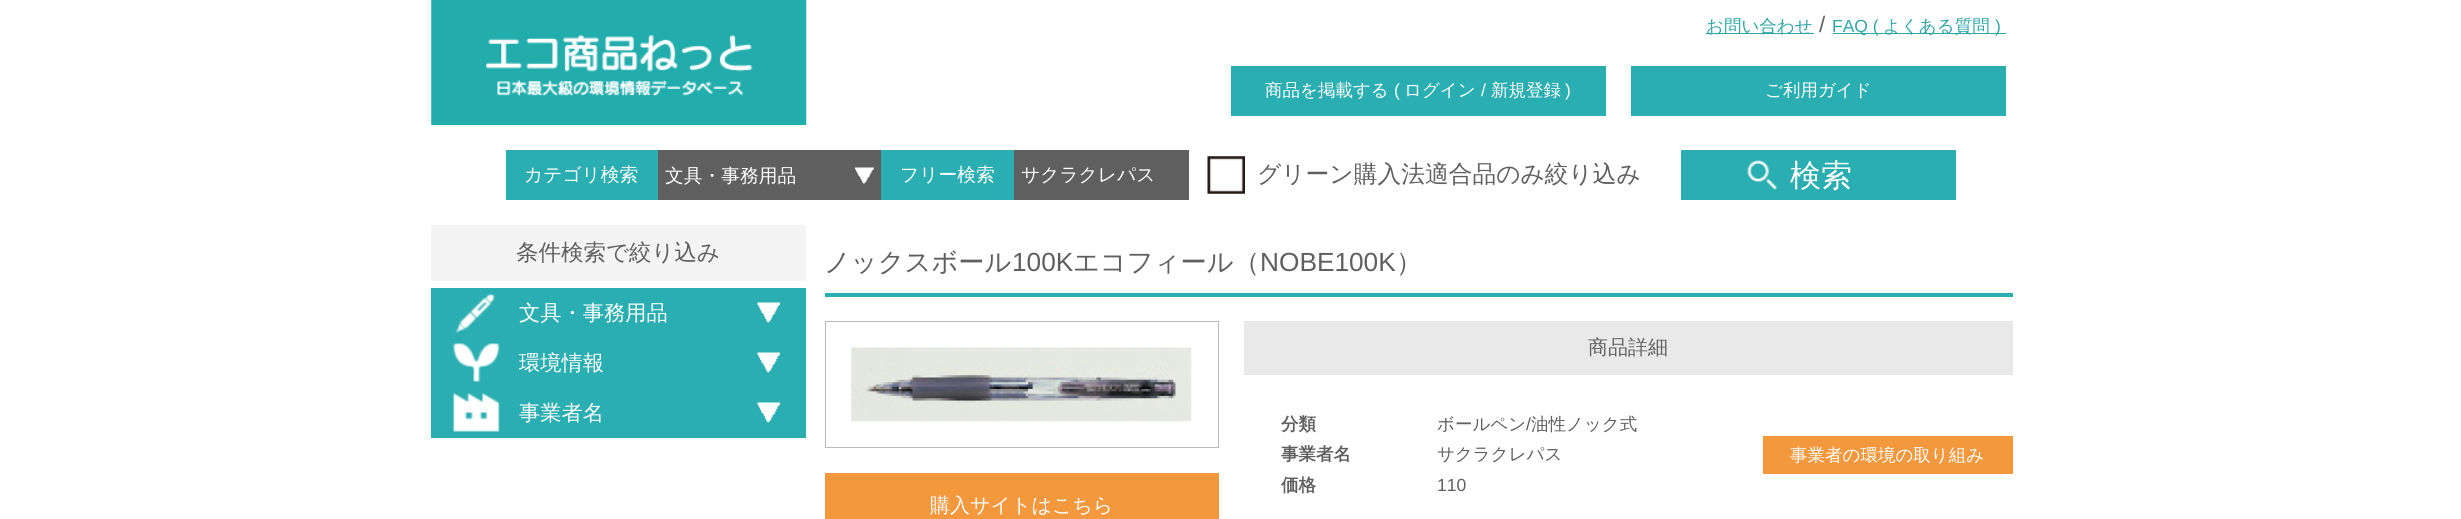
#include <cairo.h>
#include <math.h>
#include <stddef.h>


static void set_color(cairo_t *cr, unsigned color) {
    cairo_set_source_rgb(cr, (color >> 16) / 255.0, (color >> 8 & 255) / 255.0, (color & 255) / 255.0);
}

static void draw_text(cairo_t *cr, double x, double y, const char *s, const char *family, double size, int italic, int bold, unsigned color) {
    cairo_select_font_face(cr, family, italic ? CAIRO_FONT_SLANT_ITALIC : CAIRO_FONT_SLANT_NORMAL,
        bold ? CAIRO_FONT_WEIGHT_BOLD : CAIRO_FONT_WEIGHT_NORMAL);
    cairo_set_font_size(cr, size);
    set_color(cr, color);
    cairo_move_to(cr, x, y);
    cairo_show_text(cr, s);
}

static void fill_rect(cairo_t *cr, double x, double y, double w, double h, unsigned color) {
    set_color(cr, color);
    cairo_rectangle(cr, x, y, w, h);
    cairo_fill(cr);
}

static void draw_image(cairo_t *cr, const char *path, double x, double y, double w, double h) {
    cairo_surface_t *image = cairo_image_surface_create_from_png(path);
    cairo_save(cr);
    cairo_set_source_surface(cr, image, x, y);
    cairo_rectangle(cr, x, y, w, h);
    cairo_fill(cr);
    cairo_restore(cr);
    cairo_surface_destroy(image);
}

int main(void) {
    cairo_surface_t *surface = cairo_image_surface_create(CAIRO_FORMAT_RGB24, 2461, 519);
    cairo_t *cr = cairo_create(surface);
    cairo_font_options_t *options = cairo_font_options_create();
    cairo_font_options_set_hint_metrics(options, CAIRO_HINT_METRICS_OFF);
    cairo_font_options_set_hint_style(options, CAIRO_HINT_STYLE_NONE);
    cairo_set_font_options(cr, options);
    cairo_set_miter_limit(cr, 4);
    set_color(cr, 0xFFFFFF);
    cairo_paint(cr);
    draw_image(cr, "assets/img1.png", 431, 0, 376, 125);
    fill_rect(cr, 1706, 33, 108, 1, 0x2FA6A8);
    draw_text(cr, 1706, 32, "お問い合わせ", "WenQuanYi Zen Hei Medium", 17.5, 0, 0, 0x2FA6A8);
    draw_text(cr, 1819, 32, "/", "Liberation Sans", 22.5, 0, 0, 0x5F5F5F);
    fill_rect(cr, 1833, 33, 173, 1, 0x2FA6A8);
    draw_text(cr, 1832, 32, "FAQ (", "Liberation Sans", 17.5, 0, 0, 0x2FA6A8);
    draw_text(cr, 1883, 32, "よくある質問", "WenQuanYi Zen Hei Medium", 17.5, 0, 0, 0x2FA6A8);
    draw_text(cr, 1995, 32, ")", "Liberation Sans", 17.5, 0, 0, 0x2FA6A8);
    fill_rect(cr, 1231, 66, 375, 50, 0x2BAEB1);
    draw_text(cr, 1265, 96, "商品を掲載する", "WenQuanYi Zen Hei Medium", 17.5, 0, 0, 0xFFFFFF);
    draw_text(cr, 1394, 96, "(", "Liberation Sans", 17.5, 0, 0, 0xFFFFFF);
    draw_text(cr, 1404, 96, "ログイン", "WenQuanYi Zen Hei Medium", 17.5, 0, 0, 0xFFFFFF);
    draw_text(cr, 1481, 96, "/", "Liberation Sans", 17.5, 0, 0, 0xFFFFFF);
    draw_text(cr, 1491, 96, "新規登録", "WenQuanYi Zen Hei Medium", 17.5, 0, 0, 0xFFFFFF);
    draw_text(cr, 1565, 96, ")", "Liberation Sans", 17.5, 0, 0, 0xFFFFFF);
    fill_rect(cr, 1631, 66, 375, 50, 0x2BAEB1);
    draw_text(cr, 1765, 96, "ご利用ガイド", "WenQuanYi Zen Hei Medium", 17.5, 0, 0, 0xFFFFFF);
    fill_rect(cr, 506, 150, 152, 50, 0x2BAEB1);
    draw_text(cr, 524, 181, "カテゴリ検索", "WenQuanYi Zen Hei Medium", 18.75, 0, 0, 0xFFFFFF);
    fill_rect(cr, 658, 150, 223, 50, 0x5F5F5F);
    draw_image(cr, "assets/img2.png", 855, 167, 19, 17);
    draw_text(cr, 665, 182, "文具・事務用品", "WenQuanYi Zen Hei Medium", 18.75, 0, 0, 0xFFFFFF);
    fill_rect(cr, 881, 150, 133, 50, 0x2BAEB1);
    draw_text(cr, 900, 181, "フリー検索", "WenQuanYi Zen Hei Medium", 18.75, 0, 0, 0xFFFFFF);
    fill_rect(cr, 1014, 150, 175, 50, 0x5F5F5F);
    draw_text(cr, 1021, 181, "サクラクレパス", "WenQuanYi Zen Hei Medium", 18.75, 0, 0, 0xFFFFFF);
    draw_image(cr, "assets/img3.png", 1207, 156, 38, 38);
    draw_text(cr, 1257, 182, "グリーン購入法適合品のみ絞り込み", "WenQuanYi Zen Hei Medium", 23.75, 0, 0, 0x5F5F5F);
    fill_rect(cr, 1681, 150, 275, 50, 0x2BAEB1);
    draw_image(cr, "assets/img4.png", 1747, 160, 31, 30);
    draw_text(cr, 1790, 186, "検索", "WenQuanYi Zen Hei Medium", 31, 0, 0, 0xFFFFFF);
    fill_rect(cr, 431, 225, 375, 56, 0xF4F4F5);
    draw_text(cr, 516, 260, "条件検索で絞り込み", "WenQuanYi Zen Hei Medium", 22.5, 0, 0, 0x5F5F5F);
    fill_rect(cr, 431, 288, 375, 150, 0x2BAEB1);
    draw_image(cr, "assets/img5.png", 757, 302, 23, 21);
    draw_image(cr, "assets/img6.png", 455, 294, 40, 39);
    draw_text(cr, 519, 320, "文具・事務用品", "WenQuanYi Zen Hei Medium", 21.25, 0, 0, 0xFFFFFF);
    draw_image(cr, "assets/img5.png", 757, 352, 23, 21);
    draw_image(cr, "assets/img7.png", 453, 343, 47, 39);
    draw_text(cr, 519, 370, "環境情報", "WenQuanYi Zen Hei Medium", 21.25, 0, 0, 0xFFFFFF);
    draw_image(cr, "assets/img8.png", 757, 402, 23, 21);
    draw_image(cr, "assets/img9.png", 453, 393, 47, 39);
    draw_text(cr, 519, 420, "事業者名", "WenQuanYi Zen Hei Medium", 21.25, 0, 0, 0xFFFFFF);
    fill_rect(cr, 825, 293, 1188, 4, 0x2BAEB1);
    draw_text(cr, 824, 271, "ノックスボール", "WenQuanYi Zen Hei Medium", 26.25, 0, 0, 0x5F5F5F);
    draw_text(cr, 1012, 271, "100K", "Liberation Sans", 26.25, 0, 0, 0x5F5F5F);
    draw_text(cr, 1073, 271, "エコフィール（", "WenQuanYi Zen Hei Medium", 26.25, 0, 0, 0x5F5F5F);
    draw_text(cr, 1260, 271, "NOBE100K", "Liberation Sans", 26.25, 0, 0, 0x5F5F5F);
    draw_text(cr, 1396, 271, "）", "WenQuanYi Zen Hei Medium", 26.25, 0, 0, 0x5F5F5F);
    fill_rect(cr, 1244, 321, 769, 54, 0xE9E9E9);
    draw_text(cr, 1588, 354, "商品詳細", "WenQuanYi Zen Hei Medium", 20, 0, 0, 0x5F5F5F);
    draw_text(cr, 1281, 430, "分類", "WenQuanYi Zen Hei", 17.5, 0, 1, 0x5F5F5F);
    draw_text(cr, 1437, 430, "ボールペン", "WenQuanYi Zen Hei Medium", 17.5, 0, 0, 0x5F5F5F);
    draw_text(cr, 1526, 430, "/", "Liberation Sans", 17.5, 0, 0, 0x5F5F5F);
    draw_text(cr, 1531, 430, "油性ノック式", "WenQuanYi Zen Hei Medium", 17.5, 0, 0, 0x5F5F5F);
    draw_text(cr, 1281, 460, "事業者名", "WenQuanYi Zen Hei", 17.5, 0, 1, 0x5F5F5F);
    draw_text(cr, 1437, 460, "サクラクレパス", "WenQuanYi Zen Hei Medium", 17.5, 0, 0, 0x5F5F5F);
    draw_text(cr, 1281, 491, "価格", "WenQuanYi Zen Hei", 17.5, 0, 1, 0x5F5F5F);
    draw_text(cr, 1437, 491, "110", "Liberation Sans", 17.5, 0, 0, 0x5F5F5F);
    fill_rect(cr, 1763, 436, 250, 38, 0xF4983D);
    draw_text(cr, 1790, 461, "事業者の環境の取り組み", "WenQuanYi Zen Hei Medium", 17.5, 0, 0, 0xFFFFFF);
    cairo_rectangle(cr, 825.5, 321.5, 393, 126);
    set_color(cr, 0xBBBABA);
    cairo_set_line_width(cr, 1);
    cairo_stroke(cr);
    draw_image(cr, "assets/img10.png", 851, 347, 341, 75);
    fill_rect(cr, 825, 473, 394, 46, 0xF4983D);
    draw_text(cr, 930, 512, "購入サイトはこちら", "WenQuanYi Zen Hei Medium", 20, 0, 0, 0xFFFFFF);
    cairo_surface_write_to_png(surface, "output.png");
    cairo_font_options_destroy(options);
    cairo_destroy(cr);
    cairo_surface_destroy(surface);
    return 0;
}
